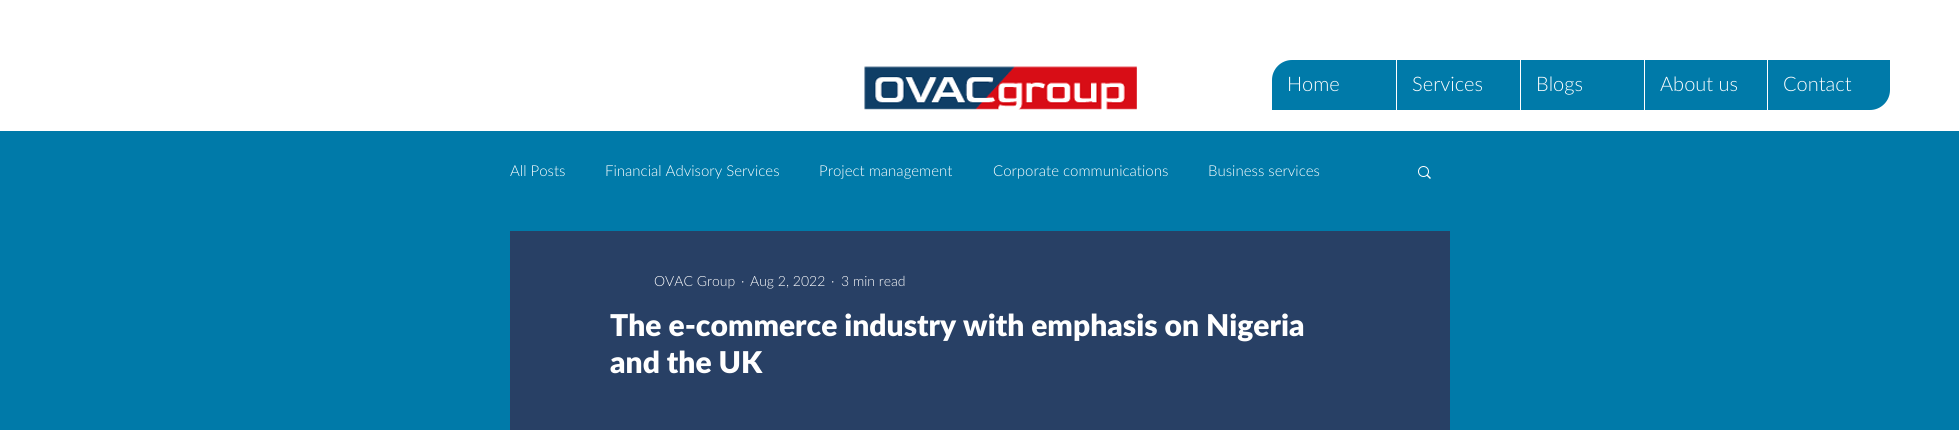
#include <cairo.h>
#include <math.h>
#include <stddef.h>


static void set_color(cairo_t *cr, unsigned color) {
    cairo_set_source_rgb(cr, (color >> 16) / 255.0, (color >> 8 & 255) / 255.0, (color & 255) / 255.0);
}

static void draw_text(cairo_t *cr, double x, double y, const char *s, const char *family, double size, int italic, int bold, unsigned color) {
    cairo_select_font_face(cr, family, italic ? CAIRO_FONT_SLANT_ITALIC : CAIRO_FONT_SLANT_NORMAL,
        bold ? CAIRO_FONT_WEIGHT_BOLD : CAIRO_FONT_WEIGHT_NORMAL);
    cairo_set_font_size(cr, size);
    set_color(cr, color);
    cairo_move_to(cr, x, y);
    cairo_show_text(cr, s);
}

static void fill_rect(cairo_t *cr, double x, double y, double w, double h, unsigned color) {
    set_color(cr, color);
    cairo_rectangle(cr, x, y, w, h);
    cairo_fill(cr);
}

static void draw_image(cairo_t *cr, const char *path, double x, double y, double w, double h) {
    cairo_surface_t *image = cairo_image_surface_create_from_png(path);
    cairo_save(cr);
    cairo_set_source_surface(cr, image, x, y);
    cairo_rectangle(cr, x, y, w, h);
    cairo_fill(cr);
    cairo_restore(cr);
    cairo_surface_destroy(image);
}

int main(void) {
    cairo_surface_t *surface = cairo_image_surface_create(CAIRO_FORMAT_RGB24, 1959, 430);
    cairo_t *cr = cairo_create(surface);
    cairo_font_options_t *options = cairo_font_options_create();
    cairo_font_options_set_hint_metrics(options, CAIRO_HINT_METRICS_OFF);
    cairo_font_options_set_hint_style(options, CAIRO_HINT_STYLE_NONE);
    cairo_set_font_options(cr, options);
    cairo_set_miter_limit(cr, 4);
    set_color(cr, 0x007AA9);
    cairo_paint(cr);
    fill_rect(cr, 0, 0, 1959, 131, 0xFFFFFF);
    draw_image(cr, "assets/img1.png", 864, 66, 273, 44);
    set_color(cr, 0x007AA9);
    cairo_new_path(cr);
    cairo_move_to(cr, 1292, 60);
    cairo_line_to(cr, 1890, 60);
    cairo_line_to(cr, 1890, 90);
    cairo_curve_to(cr, 1890, 101, 1881, 110, 1870, 110);
    cairo_line_to(cr, 1272, 110);
    cairo_line_to(cr, 1272, 80);
    cairo_curve_to(cr, 1272, 69, 1281, 60, 1292, 60);
    cairo_close_path(cr);
    cairo_fill(cr);
    draw_text(cr, 1287, 91, "Home", "Lato Light", 20, 0, 0, 0xFFFFFF);
    fill_rect(cr, 1396, 60, 1, 50, 0xFFFFFF);
    draw_text(cr, 1412, 91, "Services", "Lato Light", 20, 0, 0, 0xFFFFFF);
    fill_rect(cr, 1520, 60, 1, 50, 0xFFFFFF);
    draw_text(cr, 1536, 91, "Blogs", "Lato Light", 20, 0, 0, 0xFFFFFF);
    fill_rect(cr, 1644, 60, 1, 50, 0xFFFFFF);
    draw_text(cr, 1660, 91, "About us", "Lato Light", 20, 0, 0, 0xFFFFFF);
    fill_rect(cr, 1767, 60, 1, 50, 0xFFFFFF);
    draw_text(cr, 1783, 91, "Contact", "Lato Light", 20, 0, 0, 0xFFFFFF);
    draw_text(cr, 510, 176, "All Posts", "Lato Light", 15, 0, 0, 0xFFFFFF);
    draw_text(cr, 605, 176, "Financial Advisory Services", "Lato Light", 15, 0, 0, 0xFFFFFF);
    draw_text(cr, 819, 176, "Project management", "Lato Light", 15, 0, 0, 0xFFFFFF);
    draw_text(cr, 993, 176, "Corporate communications", "Lato Light", 15, 0, 0, 0xFFFFFF);
    draw_text(cr, 1208, 176, "Business services", "Lato Light", 15, 0, 0, 0xFFFFFF);
    draw_image(cr, "assets/img2.png", 1418, 166, 13, 13);
    fill_rect(cr, 510, 231, 940, 199, 0x284065);
    draw_text(cr, 654, 286, "OVAC Group", "Lato Light", 14, 0, 0, 0xFFFFFF);
    draw_text(cr, 741, 286, "·", "Lato Light", 14, 0, 0, 0xFFFFFF);
    draw_text(cr, 750, 286, "Aug 2, 2022", "Lato Light", 14, 0, 0, 0xFFFFFF);
    draw_text(cr, 831, 286, "·", "Lato Light", 14, 0, 0, 0xFFFFFF);
    draw_text(cr, 841, 286, "3 min read", "Lato Light", 14, 0, 0, 0xFFFFFF);
    draw_text(cr, 610, 336, "The e-commerce industry with emphasis on Nigeria", "Lato Black", 30, 0, 0, 0xFFFFFF);
    draw_text(cr, 610, 373, "and the UK", "Lato Black", 30, 0, 0, 0xFFFFFF);
    cairo_surface_write_to_png(surface, "output.png");
    cairo_font_options_destroy(options);
    cairo_destroy(cr);
    cairo_surface_destroy(surface);
    return 0;
}
